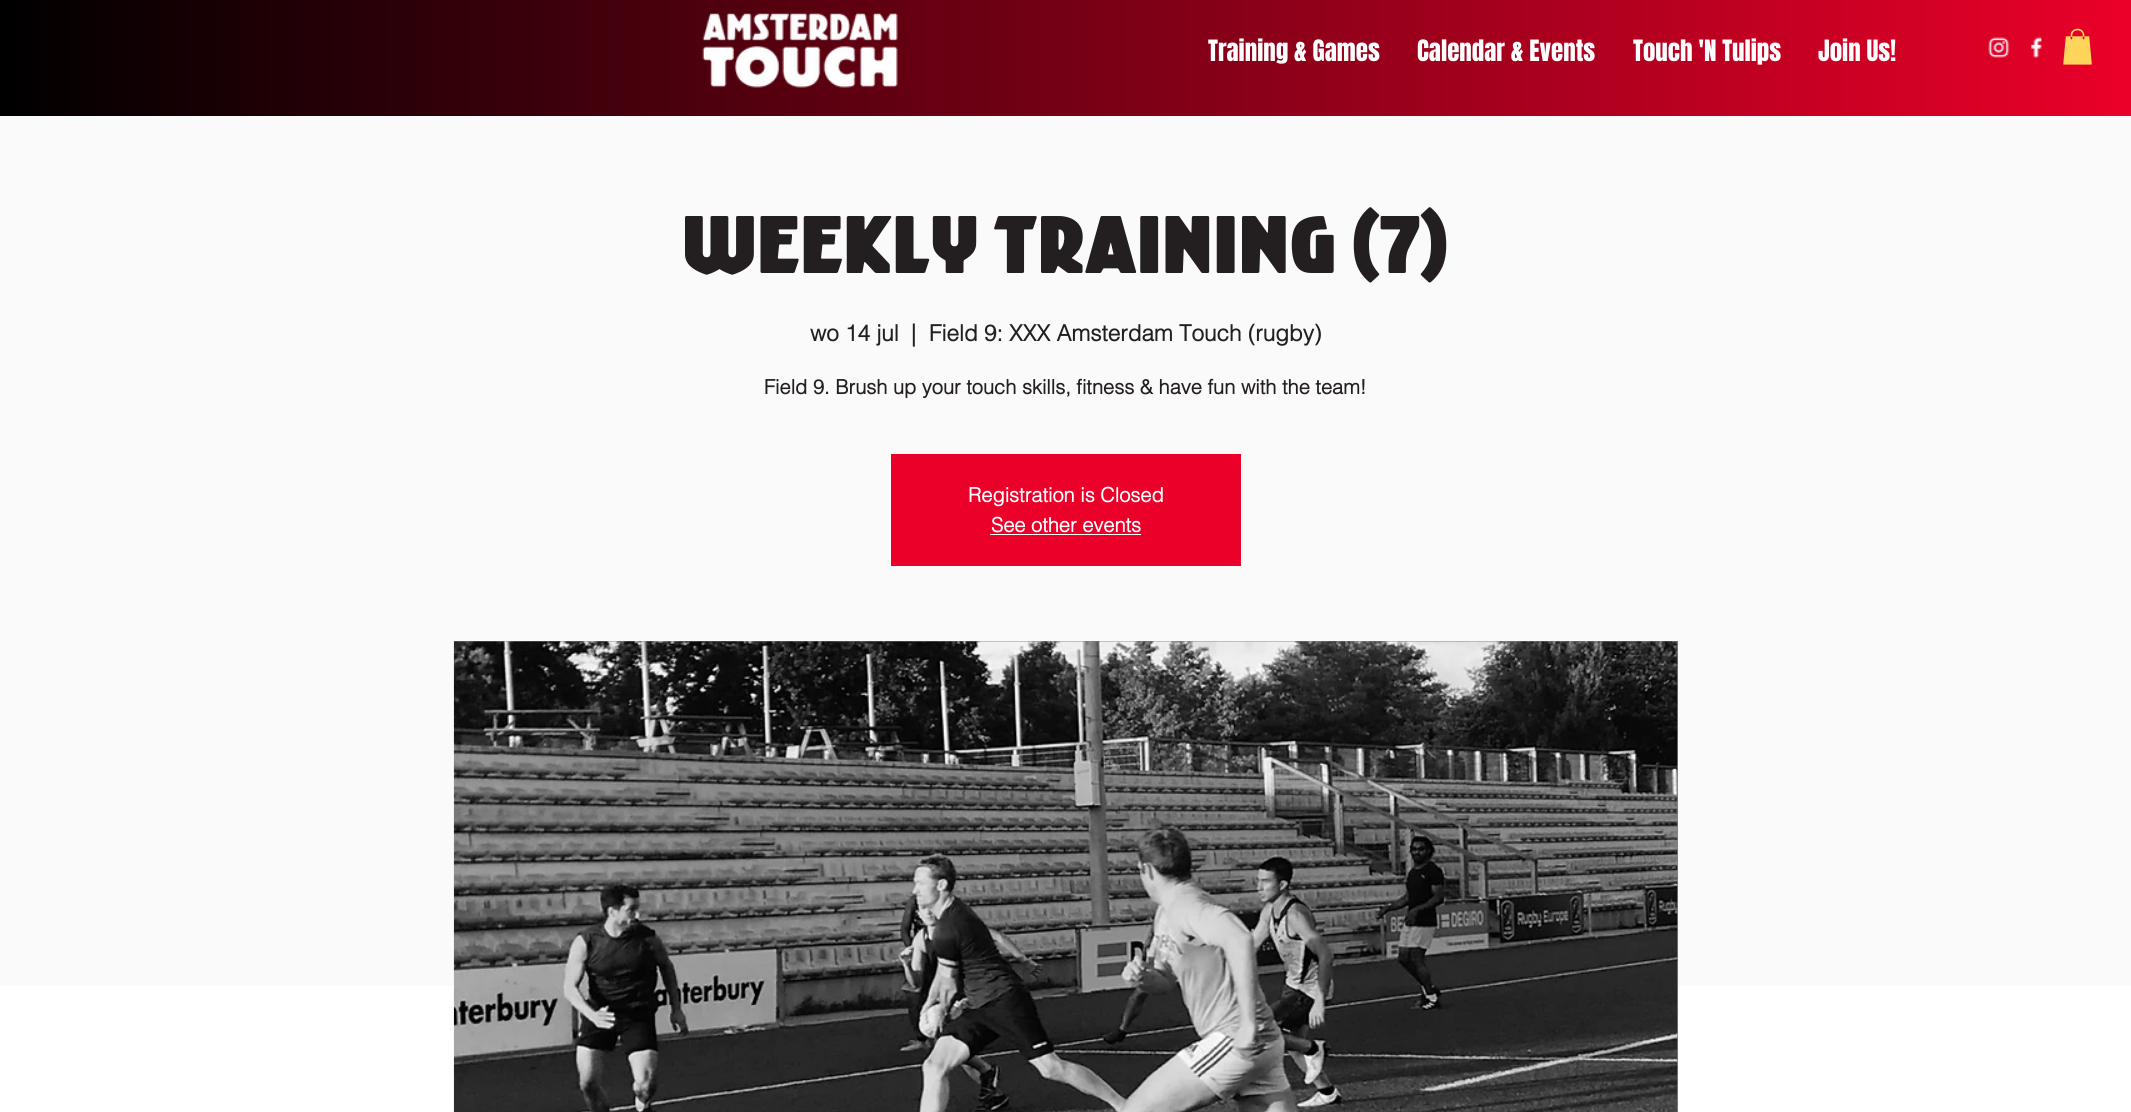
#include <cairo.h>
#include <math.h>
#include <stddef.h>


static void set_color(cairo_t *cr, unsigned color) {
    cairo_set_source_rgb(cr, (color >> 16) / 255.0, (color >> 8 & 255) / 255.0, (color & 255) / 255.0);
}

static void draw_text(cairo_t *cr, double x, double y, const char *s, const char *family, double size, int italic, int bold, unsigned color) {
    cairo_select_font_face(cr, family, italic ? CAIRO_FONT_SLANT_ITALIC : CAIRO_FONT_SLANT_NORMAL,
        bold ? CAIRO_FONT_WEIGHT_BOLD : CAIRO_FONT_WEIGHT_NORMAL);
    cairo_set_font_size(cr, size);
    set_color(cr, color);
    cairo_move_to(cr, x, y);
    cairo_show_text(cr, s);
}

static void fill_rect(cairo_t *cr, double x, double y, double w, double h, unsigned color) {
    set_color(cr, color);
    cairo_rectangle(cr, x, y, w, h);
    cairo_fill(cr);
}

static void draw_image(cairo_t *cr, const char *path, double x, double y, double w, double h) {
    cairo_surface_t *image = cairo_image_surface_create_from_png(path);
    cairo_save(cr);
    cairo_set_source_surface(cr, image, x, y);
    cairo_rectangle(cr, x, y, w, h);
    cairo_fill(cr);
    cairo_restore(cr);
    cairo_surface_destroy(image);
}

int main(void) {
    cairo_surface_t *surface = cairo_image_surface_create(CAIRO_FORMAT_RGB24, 2131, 1112);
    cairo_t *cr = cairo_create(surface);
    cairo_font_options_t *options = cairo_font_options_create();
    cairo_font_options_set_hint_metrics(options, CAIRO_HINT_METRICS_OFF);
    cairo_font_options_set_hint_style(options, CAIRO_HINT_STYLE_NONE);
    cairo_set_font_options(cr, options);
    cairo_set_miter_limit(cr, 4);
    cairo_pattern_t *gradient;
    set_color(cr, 0xFFFFFF);
    cairo_paint(cr);
    gradient = cairo_pattern_create_linear(0, 58, 2131, 58);
    cairo_pattern_add_color_stop_rgba(gradient, 0, 0, 0, 0, 1);
    cairo_pattern_add_color_stop_rgba(gradient, 1, 0.918, 0, 0.161, 1);
    cairo_set_source(cr, gradient);
    cairo_pattern_destroy(gradient);
    cairo_rectangle(cr, 0, 0, 2131, 116);
    cairo_fill(cr);
    draw_image(cr, "assets/img1.png", 702, 13, 196, 75);
    draw_text(cr, 1208, 61, "Training & Games", "Anton", 25, 0, 0, 0xFFFFFF);
    draw_text(cr, 1417, 61, "Calendar & Events", "Anton", 25, 0, 0, 0xFFFFFF);
    draw_text(cr, 1633, 61, "Touch 'N Tulips", "Anton", 25, 0, 0, 0xFFFFFF);
    draw_text(cr, 1818, 61, "Join Us!", "Anton", 25, 0, 0, 0xFFFFFF);
    draw_image(cr, "assets/img2.png", 1988, 37, 22, 21);
    draw_image(cr, "assets/img3.png", 2030, 37, 13, 21);
    draw_image(cr, "assets/img4.png", 2063, 28, 29, 37);
    fill_rect(cr, 0, 116, 2131, 870, 0xFBFAFA);
    draw_text(cr, 682, 273, "Weekly training (7)", "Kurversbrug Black", 75, 0, 0, 0x231F20);
    draw_text(cr, 810, 341, "wo 14 jul", "helvetica", 22.5, 0, 1, 0x231F20);
    draw_text(cr, 911, 341, "|", "helvetica", 22.5, 0, 1, 0x231F20);
    draw_text(cr, 929, 341, "Field 9: XXX Amsterdam Touch (rugby)", "helvetica", 22.5, 0, 1, 0x231F20);
    draw_text(cr, 764, 394, "Field 9. Brush up your touch skills, fitness & have fun with the team!", "helvetica", 20, 0, 1, 0x231F20);
    fill_rect(cr, 891, 454, 350, 112, 0xEA0029);
    draw_text(cr, 968, 502, "Registration is Closed", "helvetica", 20, 0, 1, 0xFFFFFF);
    draw_text(cr, 991, 532, "See other events", "helvetica", 20, 0, 1, 0xFFFFFF);
    fill_rect(cr, 990, 534, 151, 1, 0xFFFFFF);
    fill_rect(cr, 454, 641, 1224, 471, 0xFF4767);
    draw_image(cr, "assets/img5.png", 453, 641, 1225, 471);
    cairo_surface_write_to_png(surface, "output.png");
    cairo_font_options_destroy(options);
    cairo_destroy(cr);
    cairo_surface_destroy(surface);
    return 0;
}
